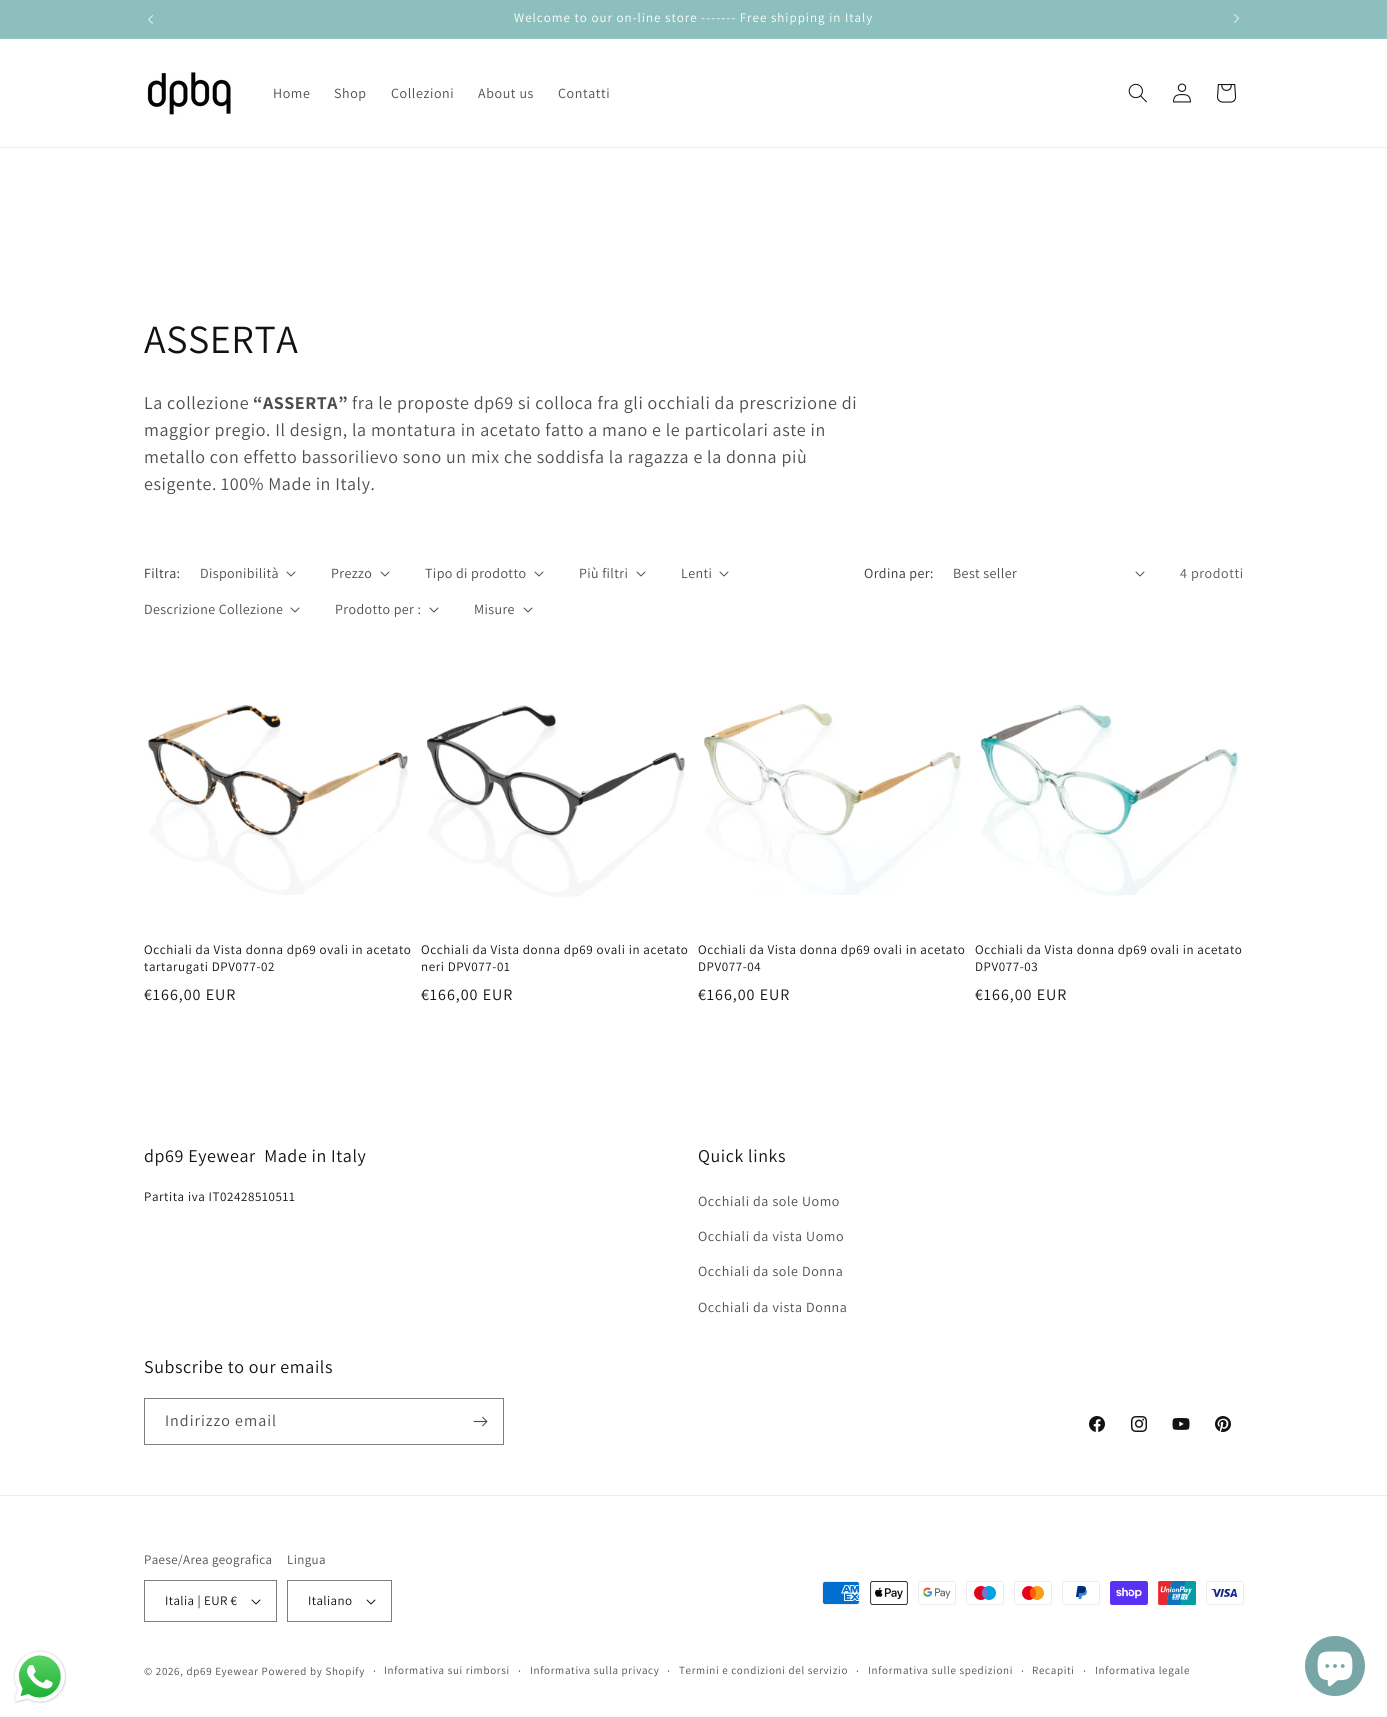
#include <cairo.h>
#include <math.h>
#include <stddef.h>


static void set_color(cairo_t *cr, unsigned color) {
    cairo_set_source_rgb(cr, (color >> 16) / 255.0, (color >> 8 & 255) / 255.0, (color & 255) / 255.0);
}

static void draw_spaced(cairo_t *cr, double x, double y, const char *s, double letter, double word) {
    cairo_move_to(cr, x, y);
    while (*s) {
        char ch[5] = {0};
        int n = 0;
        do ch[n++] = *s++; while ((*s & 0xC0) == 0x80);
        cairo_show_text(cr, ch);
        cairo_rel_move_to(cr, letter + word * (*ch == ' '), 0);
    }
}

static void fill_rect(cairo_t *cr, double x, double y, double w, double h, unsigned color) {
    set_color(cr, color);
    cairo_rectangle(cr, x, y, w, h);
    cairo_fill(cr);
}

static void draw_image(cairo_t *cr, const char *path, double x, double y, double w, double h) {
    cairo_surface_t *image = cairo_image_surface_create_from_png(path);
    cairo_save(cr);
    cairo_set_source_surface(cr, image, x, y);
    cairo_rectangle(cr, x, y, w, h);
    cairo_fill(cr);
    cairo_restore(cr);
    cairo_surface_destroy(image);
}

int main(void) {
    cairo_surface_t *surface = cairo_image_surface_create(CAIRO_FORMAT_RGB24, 1387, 1717);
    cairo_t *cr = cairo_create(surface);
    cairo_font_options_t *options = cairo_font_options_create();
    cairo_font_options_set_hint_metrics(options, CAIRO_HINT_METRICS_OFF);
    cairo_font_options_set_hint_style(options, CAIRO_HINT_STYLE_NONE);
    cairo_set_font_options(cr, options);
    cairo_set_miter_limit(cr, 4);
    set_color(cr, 0xFFFFFF);
    cairo_paint(cr);
    fill_rect(cr, 0, 0, 1387, 38, 0x8DBFBF);
    fill_rect(cr, 0, 38, 1387, 1, 0x96C4C4);
    draw_image(cr, "assets/img1.png", 148, 15, 5, 9);
    cairo_select_font_face(cr, "Assistant", CAIRO_FONT_SLANT_NORMAL, CAIRO_FONT_WEIGHT_NORMAL);
    cairo_set_font_size(cr, 13);
    set_color(cr, 0xFFFFFF);
    draw_spaced(cr, 514, 22, "Welcome to our on-line store ------- Free shipping in Italy", 1, 0);
    draw_image(cr, "assets/img2.png", 1234, 14, 5, 9);
    fill_rect(cr, 0, 147, 1387, 1, 0xECECEC);
    draw_image(cr, "assets/img3.png", 147, 72, 85, 43);
    cairo_set_font_size(cr, 14);
    set_color(cr, 0x4D4D4D);
    draw_spaced(cr, 273, 98, "Home", 0.6, 0);
    draw_spaced(cr, 334, 98, "Shop", 0.6, 0);
    draw_spaced(cr, 391, 98, "Collezioni", 0.6, 0);
    draw_spaced(cr, 478, 98, "About us", 0.6, 0);
    draw_spaced(cr, 558, 98, "Contatti", 0.6, 0);
    draw_image(cr, "assets/img4.png", 1128, 83, 19, 20);
    draw_image(cr, "assets/img5.png", 1173, 83, 18, 20);
    draw_image(cr, "assets/img6.png", 1217, 84, 20, 19);
    cairo_set_font_size(cr, 40);
    set_color(cr, 0x121212);
    draw_spaced(cr, 144, 353, "ASSERTA", 0.6, 0);
    cairo_set_font_size(cr, 18);
    set_color(cr, 0x4D4D4D);
    draw_spaced(cr, 144, 409, "La collezione", 0.6, 0);
    cairo_select_font_face(cr, "Assistant", CAIRO_FONT_SLANT_NORMAL, CAIRO_FONT_WEIGHT_BOLD);
    draw_spaced(cr, 253, 409, "“ASSERTA”", 0.6, 0);
    cairo_select_font_face(cr, "Assistant", CAIRO_FONT_SLANT_NORMAL, CAIRO_FONT_WEIGHT_NORMAL);
    draw_spaced(cr, 352, 409, "fra le proposte dp69 si colloca fra gli occhiali da prescrizione di", 0.6, 0);
    draw_spaced(cr, 144, 436, "maggior pregio. Il design, la montatura in acetato fatto a mano e le particolari aste in", 0.6, 0);
    draw_spaced(cr, 144, 463, "metallo con effetto bassorilievo sono un mix che soddisfa la ragazza e la donna più", 0.6, 0);
    draw_spaced(cr, 144, 490, "esigente. 100% Made in Italy.", 0.6, 0);
    cairo_set_font_size(cr, 14);
    set_color(cr, 0x363636);
    draw_spaced(cr, 144, 578, "Filtra:", 0.4, 0);
    set_color(cr, 0x4D4D4D);
    draw_spaced(cr, 200, 578, "Disponibilità", 0.4, 0);
    draw_image(cr, "assets/img7.png", 286, 571, 10, 6);
    draw_spaced(cr, 331, 578, "Prezzo", 0.4, 0);
    draw_image(cr, "assets/img7.png", 380, 571, 10, 6);
    draw_spaced(cr, 425, 578, "Tipo di prodotto", 0.4, 0);
    draw_image(cr, "assets/img7.png", 534, 571, 10, 6);
    draw_spaced(cr, 579, 578, "Più filtri", 0.4, 0);
    draw_image(cr, "assets/img7.png", 636, 571, 10, 6);
    draw_spaced(cr, 681, 578, "Lenti", 0.4, 0);
    draw_image(cr, "assets/img7.png", 719, 571, 10, 6);
    draw_spaced(cr, 144, 614, "Descrizione Collezione", 0.4, 0);
    draw_image(cr, "assets/img7.png", 290, 607, 10, 6);
    draw_spaced(cr, 335, 614, "Prodotto per :", 0.4, 0);
    draw_image(cr, "assets/img7.png", 429, 607, 10, 6);
    draw_spaced(cr, 474, 614, "Misure", 0.4, 0);
    draw_image(cr, "assets/img7.png", 523, 607, 10, 6);
    set_color(cr, 0x363636);
    draw_spaced(cr, 864, 578, "Ordina per:", 0.4, 0);
    set_color(cr, 0x4D4D4D);
    draw_spaced(cr, 953, 578, "Best seller", 0.4, 0);
    draw_image(cr, "assets/img7.png", 1135, 571, 10, 6);
    set_color(cr, 0x595959);
    draw_spaced(cr, 1180, 578, "4 prodotti", 0.6, 0);
    draw_image(cr, "assets/img8.png", 147, 704, 261, 191);
    cairo_set_font_size(cr, 13);
    set_color(cr, 0x121212);
    draw_spaced(cr, 144, 954, "Occhiali da Vista donna dp69 ovali in acetato", 0.6, 0);
    draw_spaced(cr, 144, 971, "tartarugati DPV077-02", 0.6, 0);
    cairo_set_font_size(cr, 16);
    draw_spaced(cr, 144, 1000, "€166,00 EUR", 1, 0);
    draw_image(cr, "assets/img9.png", 427, 705, 258, 192);
    cairo_set_font_size(cr, 13);
    draw_spaced(cr, 421, 954, "Occhiali da Vista donna dp69 ovali in acetato", 0.6, 0);
    draw_spaced(cr, 421, 971, "neri DPV077-01", 0.6, 0);
    cairo_set_font_size(cr, 16);
    draw_spaced(cr, 421, 1000, "€166,00 EUR", 1, 0);
    draw_image(cr, "assets/img10.png", 704, 704, 257, 191);
    cairo_set_font_size(cr, 13);
    draw_spaced(cr, 698, 954, "Occhiali da Vista donna dp69 ovali in acetato", 0.6, 0);
    draw_spaced(cr, 698, 971, "DPV077-04", 0.6, 0);
    cairo_set_font_size(cr, 16);
    draw_spaced(cr, 698, 1000, "€166,00 EUR", 1, 0);
    draw_image(cr, "assets/img11.png", 980, 704, 260, 192);
    cairo_set_font_size(cr, 13);
    draw_spaced(cr, 975, 954, "Occhiali da Vista donna dp69 ovali in acetato", 0.6, 0);
    draw_spaced(cr, 975, 971, "DPV077-03", 0.6, 0);
    cairo_set_font_size(cr, 16);
    draw_spaced(cr, 975, 1000, "€166,00 EUR", 1, 0);
    draw_image(cr, "assets/img12.png", 13, 1650, 54, 54);
    cairo_set_font_size(cr, 18);
    draw_spaced(cr, 144, 1162, "dp69 Eyewear  Made in Italy", 0.6, 0);
    cairo_set_font_size(cr, 13);
    draw_spaced(cr, 144, 1201, "Partita iva IT02428510511", 0.6, 0);
    cairo_set_font_size(cr, 18);
    draw_spaced(cr, 698, 1162, "Quick links", 0.6, 0);
    cairo_set_font_size(cr, 14);
    set_color(cr, 0x4D4D4D);
    draw_spaced(cr, 698, 1206, "Occhiali da sole Uomo", 0.6, 0);
    draw_spaced(cr, 698, 1241, "Occhiali da vista Uomo", 0.6, 0);
    draw_spaced(cr, 698, 1276, "Occhiali da sole Donna", 0.6, 0);
    draw_spaced(cr, 698, 1312, "Occhiali da vista Donna", 0.6, 0);
    cairo_set_font_size(cr, 18);
    set_color(cr, 0x121212);
    draw_spaced(cr, 144, 1373, "Subscribe to our emails", 0.6, 0);
    cairo_rectangle(cr, 144.5, 1398.5, 359, 46);
    set_color(cr, 0x7D7D7D);
    cairo_set_line_width(cr, 1);
    cairo_stroke(cr);
    cairo_set_font_size(cr, 16);
    set_color(cr, 0x4D4D4D);
    draw_spaced(cr, 165, 1426, "Indirizzo email", 1, 0);
    draw_image(cr, "assets/img13.png", 473, 1416, 15, 11);
    draw_image(cr, "assets/img14.png", 1089, 1416, 16, 16);
    draw_image(cr, "assets/img15.png", 1131, 1416, 16, 16);
    draw_image(cr, "assets/img16.png", 1172, 1418, 18, 12);
    draw_image(cr, "assets/img17.png", 1215, 1416, 16, 16);
    fill_rect(cr, 0, 1495, 1387, 1, 0xECECEC);
    cairo_set_font_size(cr, 13);
    set_color(cr, 0x4D4D4D);
    draw_spaced(cr, 144, 1564, "Paese/Area geografica", 0.4, 0);
    draw_image(cr, "assets/img18.png", 251, 1599, 10, 6);
    cairo_rectangle(cr, 144.5, 1580.5, 132, 41);
    set_color(cr, 0x7D7D7D);
    cairo_stroke(cr);
    set_color(cr, 0x121212);
    draw_spaced(cr, 165, 1605, "Italia | EUR €", 0.4, 0);
    set_color(cr, 0x4D4D4D);
    draw_spaced(cr, 287, 1564, "Lingua", 0.4, 0);
    draw_image(cr, "assets/img18.png", 366, 1599, 10, 6);
    cairo_rectangle(cr, 287.5, 1580.5, 104, 41);
    set_color(cr, 0x7D7D7D);
    cairo_stroke(cr);
    set_color(cr, 0x121212);
    draw_spaced(cr, 308, 1605, "Italiano", 0.4, 0);
    draw_image(cr, "assets/img19.png", 822, 1581, 38, 24);
    draw_image(cr, "assets/img20.png", 870, 1581, 38, 24);
    draw_image(cr, "assets/img21.png", 918, 1581, 38, 24);
    draw_image(cr, "assets/img22.png", 966, 1581, 38, 24);
    draw_image(cr, "assets/img23.png", 1014, 1581, 38, 24);
    draw_image(cr, "assets/img24.png", 1062, 1581, 38, 24);
    draw_image(cr, "assets/img25.png", 1110, 1581, 38, 24);
    draw_image(cr, "assets/img26.png", 1158, 1581, 38, 24);
    draw_image(cr, "assets/img27.png", 1206, 1581, 38, 24);
    cairo_set_font_size(cr, 11);
    set_color(cr, 0x4D4D4D);
    draw_spaced(cr, 144, 1675, "© 2026, dp69 Eyewear Powered by Shopify", 0.7, 0);
    cairo_set_font_size(cr, 12);
    draw_spaced(cr, 373, 1675, "·", 0.7, 0);
    cairo_set_font_size(cr, 11);
    draw_spaced(cr, 384, 1674, "Informativa sui rimborsi", 0.7, 0);
    cairo_set_font_size(cr, 12);
    draw_spaced(cr, 518, 1675, "·", 0.7, 0);
    cairo_set_font_size(cr, 11);
    draw_spaced(cr, 530, 1674, "Informativa sulla privacy", 0.7, 0);
    cairo_set_font_size(cr, 12);
    draw_spaced(cr, 667, 1675, "·", 0.7, 0);
    cairo_set_font_size(cr, 11);
    draw_spaced(cr, 679, 1674, "Termini e condizioni del servizio", 0.7, 0);
    cairo_set_font_size(cr, 12);
    draw_spaced(cr, 856, 1675, "·", 0.7, 0);
    cairo_set_font_size(cr, 11);
    draw_spaced(cr, 868, 1674, "Informativa sulle spedizioni", 0.7, 0);
    cairo_set_font_size(cr, 12);
    draw_spaced(cr, 1021, 1675, "·", 0.7, 0);
    cairo_set_font_size(cr, 11);
    draw_spaced(cr, 1032, 1674, "Recapiti", 0.7, 0);
    cairo_set_font_size(cr, 12);
    draw_spaced(cr, 1083, 1675, "·", 0.7, 0);
    cairo_set_font_size(cr, 11);
    draw_spaced(cr, 1095, 1674, "Informativa legale", 0.7, 0);
    set_color(cr, 0x78A6A6);
    cairo_new_path(cr);
    cairo_arc(cr, 1335, 1666, 30, 0, 2 * M_PI);
    cairo_fill(cr);
    draw_image(cr, "assets/img28.png", 1317, 1651, 36, 36);
    cairo_surface_write_to_png(surface, "output.png");
    cairo_font_options_destroy(options);
    cairo_destroy(cr);
    cairo_surface_destroy(surface);
    return 0;
}
